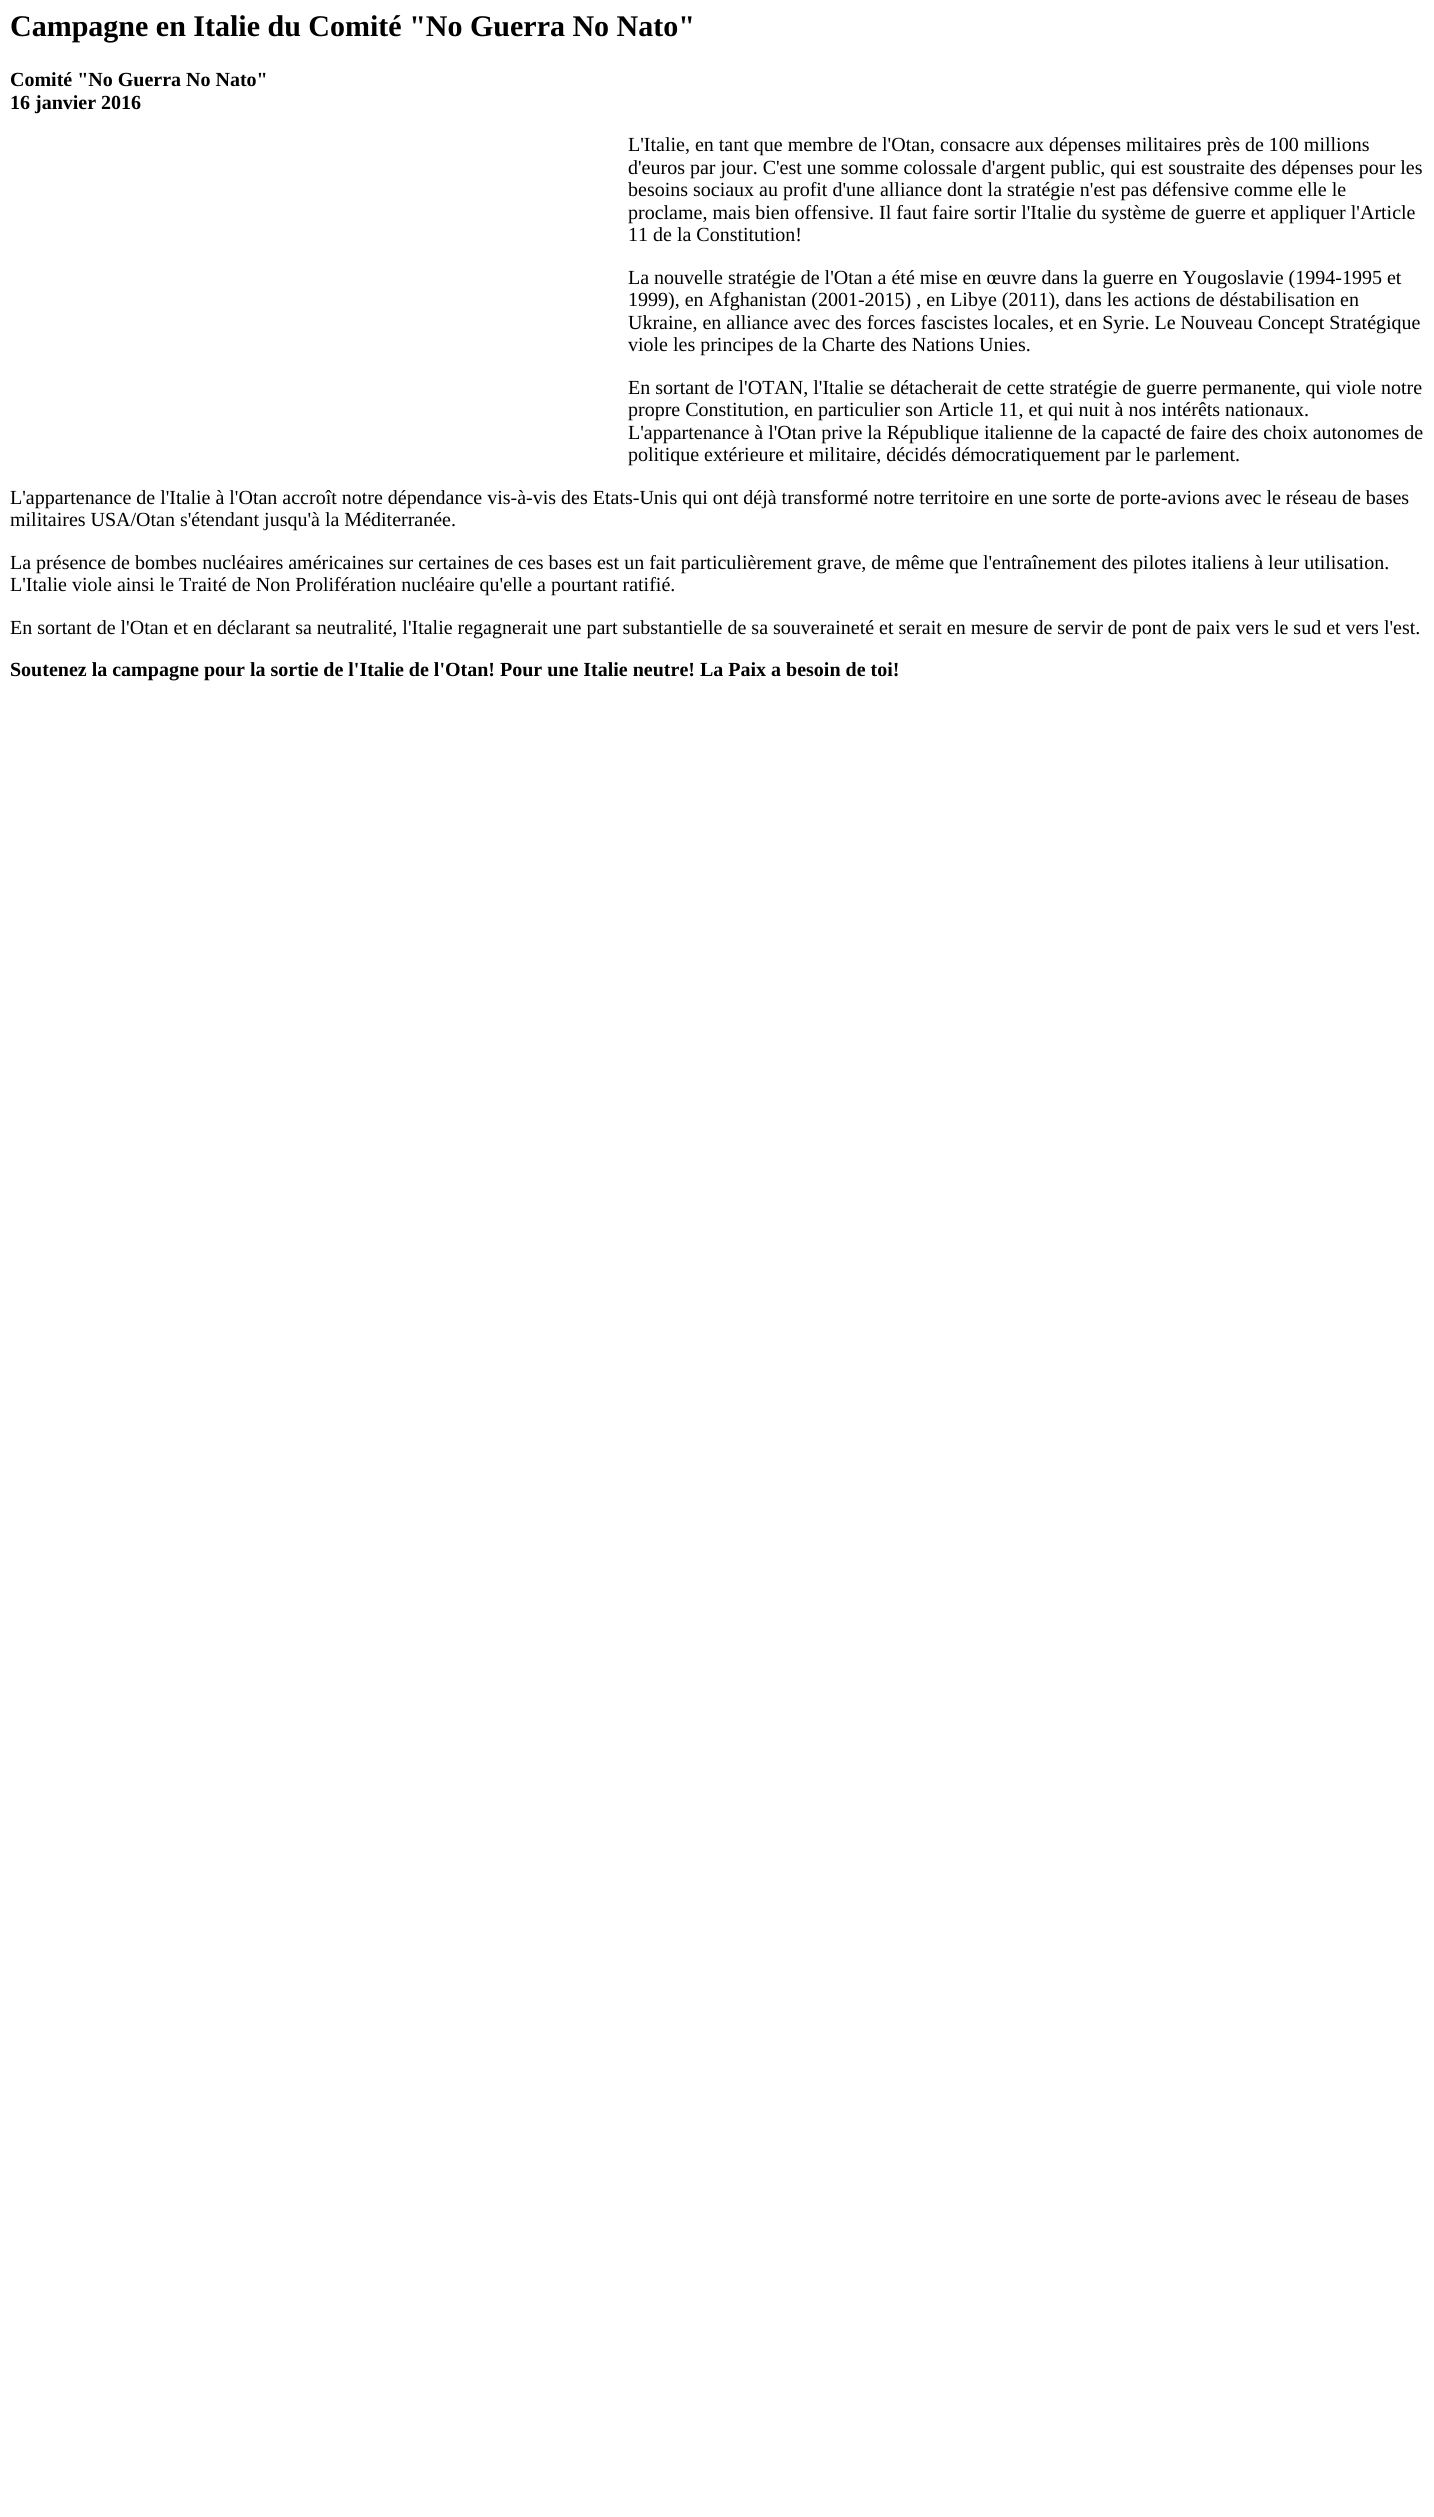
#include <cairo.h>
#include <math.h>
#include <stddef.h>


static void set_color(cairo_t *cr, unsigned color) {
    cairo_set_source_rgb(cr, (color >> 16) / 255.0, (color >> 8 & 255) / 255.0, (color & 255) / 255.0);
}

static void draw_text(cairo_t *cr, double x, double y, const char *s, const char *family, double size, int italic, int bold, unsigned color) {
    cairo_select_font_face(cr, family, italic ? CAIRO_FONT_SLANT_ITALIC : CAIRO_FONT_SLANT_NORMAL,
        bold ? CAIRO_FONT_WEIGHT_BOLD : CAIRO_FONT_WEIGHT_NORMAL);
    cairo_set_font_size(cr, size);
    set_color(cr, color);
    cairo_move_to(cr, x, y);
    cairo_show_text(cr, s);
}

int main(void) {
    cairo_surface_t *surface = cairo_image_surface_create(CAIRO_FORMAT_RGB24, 1434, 2517);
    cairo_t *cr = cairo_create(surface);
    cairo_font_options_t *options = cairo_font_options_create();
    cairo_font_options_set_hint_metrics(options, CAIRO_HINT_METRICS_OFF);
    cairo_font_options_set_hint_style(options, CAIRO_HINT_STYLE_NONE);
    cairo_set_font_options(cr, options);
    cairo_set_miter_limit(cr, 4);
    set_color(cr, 0xFFFFFF);
    cairo_paint(cr);
    draw_text(cr, 10, 36, "Campagne en Italie du Comité \"No Guerra No Nato\"", "Liberation Serif", 30, 0, 1, 0x000000);
    draw_text(cr, 10, 86, "Comité \"No Guerra No Nato\"", "Liberation Serif", 20, 0, 1, 0x000000);
    draw_text(cr, 10, 109, "16 janvier 2016", "Liberation Serif", 20, 0, 1, 0x000000);
    draw_text(cr, 628, 151, "L'Italie, en tant que membre de l'Otan, consacre aux dépenses militaires près de 100 millions", "Liberation Serif", 20, 0, 0, 0x000000);
    draw_text(cr, 628, 174, "d'euros par jour. C'est une somme colossale d'argent public, qui est soustraite des dépenses pour les", "Liberation Serif", 20, 0, 0, 0x000000);
    draw_text(cr, 628, 196, "besoins sociaux au profit d'une alliance dont la stratégie n'est pas défensive comme elle le", "Liberation Serif", 20, 0, 0, 0x000000);
    draw_text(cr, 628, 219, "proclame, mais bien offensive. Il faut faire sortir l'Italie du système de guerre et appliquer l'Article", "Liberation Serif", 20, 0, 0, 0x000000);
    draw_text(cr, 628, 241, "11 de la Constitution!", "Liberation Serif", 20, 0, 0, 0x000000);
    draw_text(cr, 628, 284, "La nouvelle stratégie de l'Otan a été mise en œuvre dans la guerre en Yougoslavie (1994-1995 et", "Liberation Serif", 20, 0, 0, 0x000000);
    draw_text(cr, 628, 306, "1999), en Afghanistan (2001-2015) , en Libye (2011), dans les actions de déstabilisation en", "Liberation Serif", 20, 0, 0, 0x000000);
    draw_text(cr, 628, 329, "Ukraine, en alliance avec des forces fascistes locales, et en Syrie. Le Nouveau Concept Stratégique", "Liberation Serif", 20, 0, 0, 0x000000);
    draw_text(cr, 628, 351, "viole les principes de la Charte des Nations Unies.", "Liberation Serif", 20, 0, 0, 0x000000);
    draw_text(cr, 628, 394, "En sortant de l'OTAN, l'Italie se détacherait de cette stratégie de guerre permanente, qui viole notre", "Liberation Serif", 20, 0, 0, 0x000000);
    draw_text(cr, 628, 416, "propre Constitution, en particulier son Article 11, et qui nuit à nos intérêts nationaux.", "Liberation Serif", 20, 0, 0, 0x000000);
    draw_text(cr, 628, 439, "L'appartenance à l'Otan prive la République italienne de la capacté de faire des choix autonomes de", "Liberation Serif", 20, 0, 0, 0x000000);
    draw_text(cr, 628, 461, "politique extérieure et militaire, décidés démocratiquement par le parlement.", "Liberation Serif", 20, 0, 0, 0x000000);
    draw_text(cr, 10, 504, "L'appartenance de l'Italie à l'Otan accroît notre dépendance vis-à-vis des Etats-Unis qui ont déjà transformé notre territoire en une sorte de porte-avions avec le réseau de bases", "Liberation Serif", 20, 0, 0, 0x000000);
    draw_text(cr, 10, 526, "militaires USA/Otan s'étendant jusqu'à la Méditerranée.", "Liberation Serif", 20, 0, 0, 0x000000);
    draw_text(cr, 10, 569, "La présence de bombes nucléaires américaines sur certaines de ces bases est un fait particulièrement grave, de même que l'entraînement des pilotes italiens à leur utilisation.", "Liberation Serif", 20, 0, 0, 0x000000);
    draw_text(cr, 10, 591, "L'Italie viole ainsi le Traité de Non Prolifération nucléaire qu'elle a pourtant ratifié.", "Liberation Serif", 20, 0, 0, 0x000000);
    draw_text(cr, 10, 634, "En sortant de l'Otan et en déclarant sa neutralité, l'Italie regagnerait une part substantielle de sa souveraineté et serait en mesure de servir de pont de paix vers le sud et vers l'est.", "Liberation Serif", 20, 0, 0, 0x000000);
    draw_text(cr, 10, 676, "Soutenez la campagne pour la sortie de l'Italie de l'Otan! Pour une Italie neutre! La Paix a besoin de toi!", "Liberation Serif", 20, 0, 1, 0x000000);
    cairo_surface_write_to_png(surface, "output.png");
    cairo_font_options_destroy(options);
    cairo_destroy(cr);
    cairo_surface_destroy(surface);
    return 0;
}
